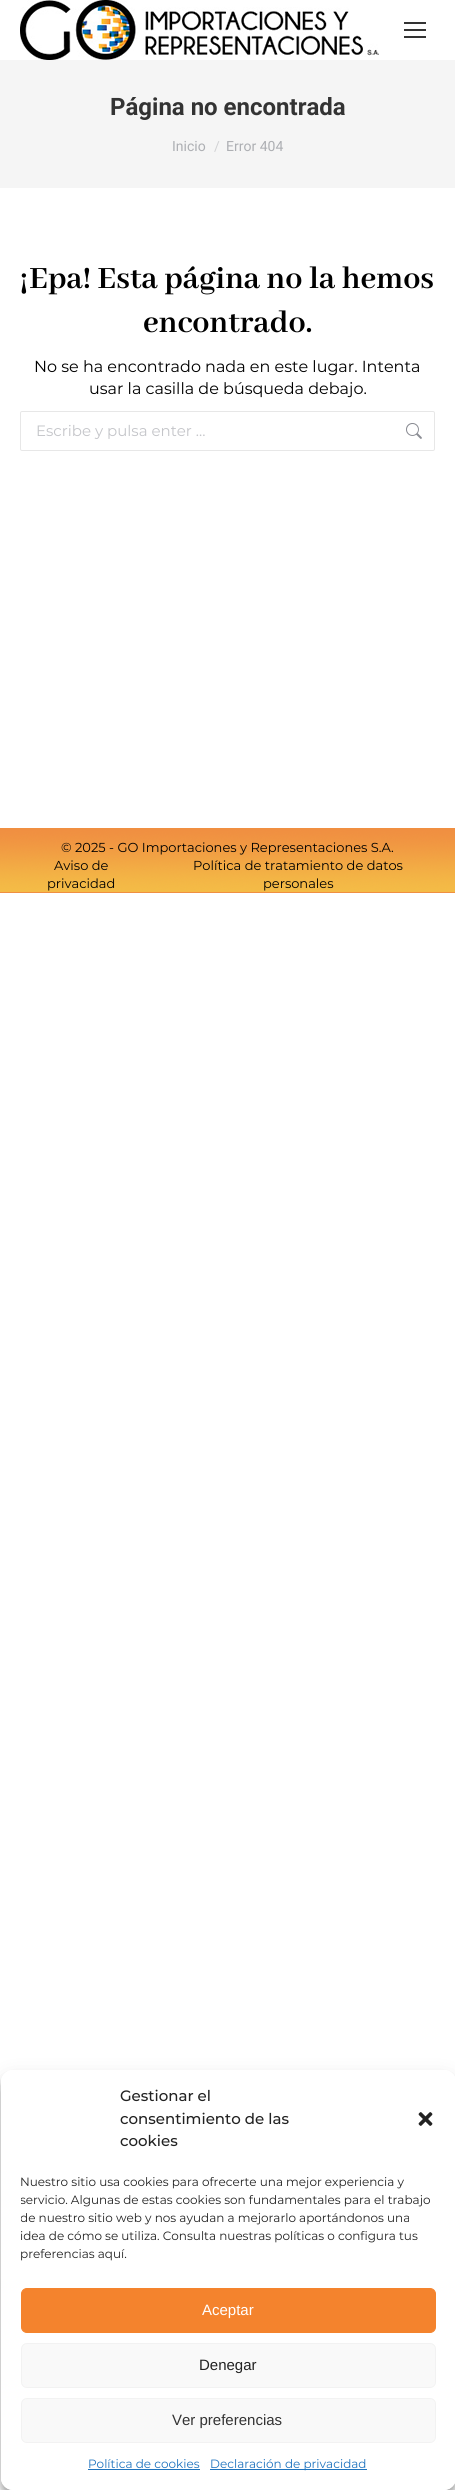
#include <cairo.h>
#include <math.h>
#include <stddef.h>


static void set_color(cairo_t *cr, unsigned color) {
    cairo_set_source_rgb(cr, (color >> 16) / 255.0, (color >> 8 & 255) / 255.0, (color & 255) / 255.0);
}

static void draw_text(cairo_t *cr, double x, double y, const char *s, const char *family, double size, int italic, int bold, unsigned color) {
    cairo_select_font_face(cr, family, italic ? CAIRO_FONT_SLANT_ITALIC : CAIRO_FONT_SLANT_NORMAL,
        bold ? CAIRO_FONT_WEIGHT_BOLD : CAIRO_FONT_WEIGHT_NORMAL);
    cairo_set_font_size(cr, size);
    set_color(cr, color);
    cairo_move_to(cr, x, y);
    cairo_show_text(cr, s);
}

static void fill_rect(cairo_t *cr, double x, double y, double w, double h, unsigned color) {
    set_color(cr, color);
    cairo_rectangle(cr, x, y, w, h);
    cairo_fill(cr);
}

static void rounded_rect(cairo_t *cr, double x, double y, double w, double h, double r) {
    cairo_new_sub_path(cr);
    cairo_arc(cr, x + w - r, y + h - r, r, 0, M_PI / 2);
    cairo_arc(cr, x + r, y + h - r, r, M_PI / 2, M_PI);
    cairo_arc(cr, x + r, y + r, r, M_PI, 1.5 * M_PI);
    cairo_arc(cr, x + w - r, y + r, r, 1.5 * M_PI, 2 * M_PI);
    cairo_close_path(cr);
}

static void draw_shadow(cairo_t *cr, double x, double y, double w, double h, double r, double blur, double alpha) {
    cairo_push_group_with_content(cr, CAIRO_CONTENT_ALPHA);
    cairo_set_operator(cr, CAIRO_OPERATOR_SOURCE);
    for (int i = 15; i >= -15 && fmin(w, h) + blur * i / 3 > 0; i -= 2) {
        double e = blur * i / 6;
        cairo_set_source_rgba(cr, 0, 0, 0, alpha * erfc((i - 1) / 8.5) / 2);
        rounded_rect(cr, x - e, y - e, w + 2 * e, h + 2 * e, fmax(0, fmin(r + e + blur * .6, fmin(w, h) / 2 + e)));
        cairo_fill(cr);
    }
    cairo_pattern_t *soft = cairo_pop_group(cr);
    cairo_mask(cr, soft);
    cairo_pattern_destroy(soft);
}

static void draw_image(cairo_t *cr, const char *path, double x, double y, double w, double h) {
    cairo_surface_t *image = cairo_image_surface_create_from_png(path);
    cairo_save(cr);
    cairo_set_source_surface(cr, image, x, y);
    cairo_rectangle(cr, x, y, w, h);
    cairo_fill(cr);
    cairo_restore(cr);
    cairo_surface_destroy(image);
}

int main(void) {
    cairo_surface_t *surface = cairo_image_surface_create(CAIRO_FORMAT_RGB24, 455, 2490);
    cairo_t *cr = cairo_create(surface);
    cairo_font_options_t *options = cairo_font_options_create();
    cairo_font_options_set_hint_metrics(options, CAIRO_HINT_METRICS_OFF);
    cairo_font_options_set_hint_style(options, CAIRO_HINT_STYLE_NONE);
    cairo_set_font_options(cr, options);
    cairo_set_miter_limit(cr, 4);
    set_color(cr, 0xFFFFFF);
    cairo_paint(cr);
    draw_image(cr, "assets/img1.png", 20, 0, 359, 60);
    fill_rect(cr, 404, 22, 22, 2, 0x333333);
    fill_rect(cr, 404, 29, 22, 2, 0x333333);
    fill_rect(cr, 404, 36, 22, 2, 0x333333);
    fill_rect(cr, 0, 60, 455, 128, 0xF5F5F5);
    draw_text(cr, 110, 115, "Página no encontrada", "Roboto", 24, 0, 1, 0x333333);
    draw_text(cr, 172, 151, "Inicio", "Roboto", 14, 0, 0, 0xADAFB3);
    draw_text(cr, 214, 151, "/", "Roboto", 14, 0, 0, 0xD1D2D4);
    draw_text(cr, 226, 151, "Error 404", "Roboto", 14, 0, 0, 0xADAFB3);
    draw_text(cr, 20, 288, "¡Epa! Esta página no la hemos", "Abhaya Libre", 34, 0, 1, 0x000000);
    draw_text(cr, 143, 332, "encontrado.", "Abhaya Libre", 34, 0, 1, 0x000000);
    draw_text(cr, 34, 372, "No se ha encontrado nada en este lugar. Intenta", "Montserrat", 16, 0, 0, 0x000000);
    draw_text(cr, 89, 394, "usar la casilla de búsqueda debajo.", "Montserrat", 16, 0, 0, 0x000000);
    rounded_rect(cr, 20.5, 411.5, 414, 39, 1.5);
    set_color(cr, 0xE7E7E7);
    cairo_set_line_width(cr, 1);
    cairo_stroke(cr);
    draw_text(cr, 36, 436, "Escribe y pulsa enter …", "Montserrat", 15, 0, 0, 0xC4C5C9);
    draw_image(cr, "assets/img2.png", 406, 423, 16, 16);
    draw_image(cr, "assets/img3.png", 0, 828, 455, 65);
    draw_text(cr, 61, 852, "© 2025 - GO Importaciones y Representaciones S.A.", "Montserrat", 13, 0, 0, 0x000000);
    draw_text(cr, 54, 870, "Aviso de", "Montserrat", 13, 0, 0, 0x000000);
    draw_text(cr, 47, 888, "privacidad", "Montserrat", 13, 0, 0, 0x000000);
    draw_text(cr, 193, 870, "Política de tratamiento de datos", "Montserrat", 13, 0, 0, 0x000000);
    draw_text(cr, 263, 888, "personales", "Montserrat", 13, 0, 0, 0x000000);
    cairo_save(cr);
    cairo_set_fill_rule(cr, CAIRO_FILL_RULE_EVEN_ODD);
    cairo_new_path(cr);
    cairo_move_to(cr, 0, 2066);
    cairo_line_to(cr, 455, 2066);
    cairo_line_to(cr, 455, 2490);
    cairo_line_to(cr, 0, 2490);
    cairo_close_path(cr);
    cairo_move_to(cr, 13, 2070);
    cairo_line_to(cr, 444, 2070);
    cairo_curve_to(cr, 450.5, 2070, 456, 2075.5, 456, 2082);
    cairo_line_to(cr, 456, 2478);
    cairo_curve_to(cr, 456, 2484.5, 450.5, 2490, 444, 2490);
    cairo_line_to(cr, 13, 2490);
    cairo_curve_to(cr, 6.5, 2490, 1, 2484.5, 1, 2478);
    cairo_line_to(cr, 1, 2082);
    cairo_curve_to(cr, 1, 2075.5, 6.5, 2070, 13, 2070);
    cairo_close_path(cr);
    cairo_clip(cr);
    set_color(cr, 0x000000);
    draw_shadow(cr, 1, 2076, 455, 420, 12, 3, 0.23);
    cairo_restore(cr);
    cairo_save(cr);
    cairo_set_fill_rule(cr, CAIRO_FILL_RULE_EVEN_ODD);
    cairo_new_path(cr);
    cairo_move_to(cr, 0, 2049);
    cairo_line_to(cr, 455, 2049);
    cairo_line_to(cr, 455, 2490);
    cairo_line_to(cr, 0, 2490);
    cairo_close_path(cr);
    cairo_move_to(cr, 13, 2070);
    cairo_line_to(cr, 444, 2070);
    cairo_curve_to(cr, 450.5, 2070, 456, 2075.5, 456, 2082);
    cairo_line_to(cr, 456, 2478);
    cairo_curve_to(cr, 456, 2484.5, 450.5, 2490, 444, 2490);
    cairo_line_to(cr, 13, 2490);
    cairo_curve_to(cr, 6.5, 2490, 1, 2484.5, 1, 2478);
    cairo_line_to(cr, 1, 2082);
    cairo_curve_to(cr, 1, 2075.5, 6.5, 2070, 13, 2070);
    cairo_close_path(cr);
    cairo_clip(cr);
    set_color(cr, 0x000000);
    draw_shadow(cr, 1, 2080, 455, 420, 12, 10, 0.19);
    cairo_restore(cr);
    set_color(cr, 0xFFFFFF);
    rounded_rect(cr, 1, 2070, 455, 420, 12);
    cairo_fill(cr);
    draw_text(cr, 120, 2101, "Gestionar el", "Montserrat Medium", 15, 0, 0, 0x222222);
    draw_text(cr, 120, 2124, "consentimiento de las", "Montserrat Medium", 15, 0, 0, 0x222222);
    draw_text(cr, 120, 2146, "cookies", "Montserrat Medium", 15, 0, 0, 0x222222);
    draw_image(cr, "assets/img4.png", 418, 2112, 15, 14);
    draw_text(cr, 20, 2186, "Nuestro sitio usa cookies para ofrecerte una mejor experiencia y", "Montserrat", 12, 0, 0, 0x222222);
    cairo_save(cr);
    cairo_rectangle(cr, 21, 2173, 415, 95);
    cairo_clip(cr);
    draw_text(cr, 20, 2204, "servicio. Algunas de estas cookies son fundamentales para el trabajo", "Montserrat", 12, 0, 0, 0x222222);
    draw_text(cr, 20, 2222, "de nuestro sitio web y nos ayudan a mejorarlo aportándonos una", "Montserrat", 12, 0, 0, 0x222222);
    cairo_restore(cr);
    draw_text(cr, 20, 2240, "idea de cómo se utiliza. Consulta nuestras políticas o configura tus", "Montserrat", 12, 0, 0, 0x222222);
    draw_text(cr, 20, 2258, "preferencias aquí.", "Montserrat", 12, 0, 0, 0x222222);
    set_color(cr, 0xF4832D);
    rounded_rect(cr, 21.5, 2288.5, 414, 44, 5.5);
    cairo_fill_preserve(cr);
    cairo_stroke(cr);
    draw_text(cr, 202, 2315, "Aceptar", "Liberation Sans", 15, 0, 0, 0xFFFFFF);
    set_color(cr, 0xF9F9F9);
    rounded_rect(cr, 21.5, 2343.5, 414, 44, 5.5);
    cairo_fill_preserve(cr);
    set_color(cr, 0xF2F2F2);
    cairo_stroke(cr);
    draw_text(cr, 199, 2370, "Denegar", "Liberation Sans", 15, 0, 0, 0x222222);
    set_color(cr, 0xF9F9F9);
    rounded_rect(cr, 21.5, 2398.5, 414, 44, 5.5);
    cairo_fill_preserve(cr);
    set_color(cr, 0xF2F2F2);
    cairo_stroke(cr);
    draw_text(cr, 172, 2425, "Ver preferencias", "Liberation Sans", 15, 0, 0, 0x333333);
    draw_text(cr, 88, 2468, "Política de cookies", "Montserrat", 12, 0, 0, 0x1E73BE);
    fill_rect(cr, 88, 2469, 112, 1, 0x1E73BE);
    fill_rect(cr, 210, 2469, 157, 1, 0x1E73BE);
    draw_text(cr, 210, 2468, "Declaración de privacidad", "Montserrat", 12, 0, 0, 0x1E73BE);
    cairo_surface_write_to_png(surface, "output.png");
    cairo_font_options_destroy(options);
    cairo_destroy(cr);
    cairo_surface_destroy(surface);
    return 0;
}
